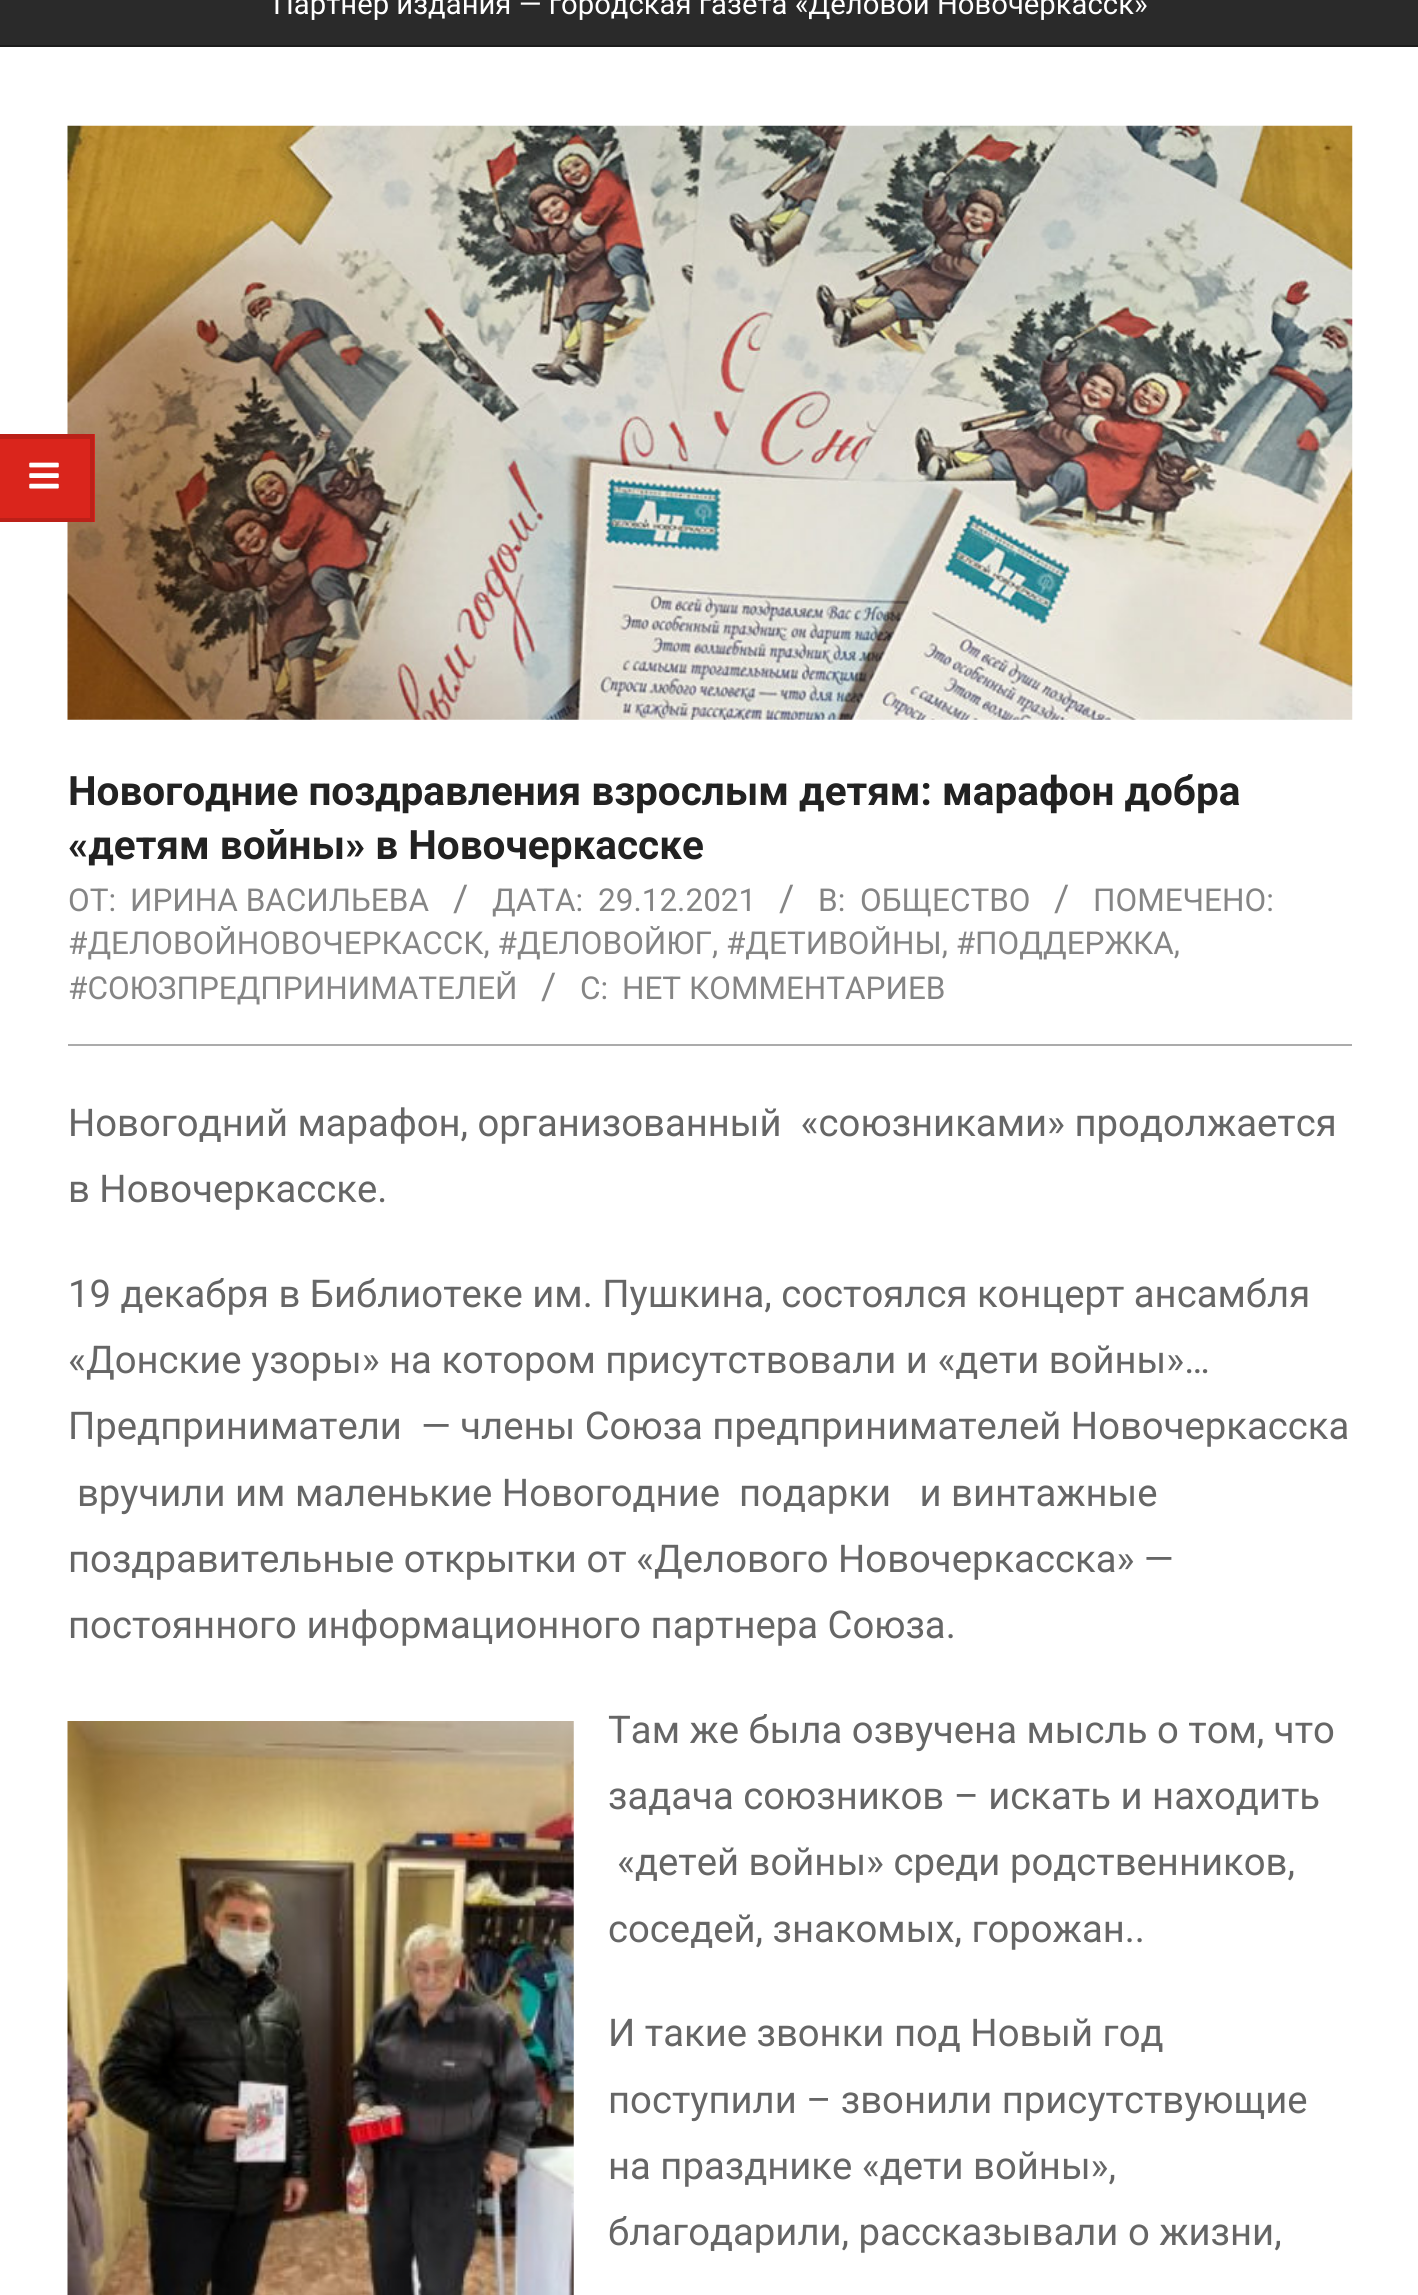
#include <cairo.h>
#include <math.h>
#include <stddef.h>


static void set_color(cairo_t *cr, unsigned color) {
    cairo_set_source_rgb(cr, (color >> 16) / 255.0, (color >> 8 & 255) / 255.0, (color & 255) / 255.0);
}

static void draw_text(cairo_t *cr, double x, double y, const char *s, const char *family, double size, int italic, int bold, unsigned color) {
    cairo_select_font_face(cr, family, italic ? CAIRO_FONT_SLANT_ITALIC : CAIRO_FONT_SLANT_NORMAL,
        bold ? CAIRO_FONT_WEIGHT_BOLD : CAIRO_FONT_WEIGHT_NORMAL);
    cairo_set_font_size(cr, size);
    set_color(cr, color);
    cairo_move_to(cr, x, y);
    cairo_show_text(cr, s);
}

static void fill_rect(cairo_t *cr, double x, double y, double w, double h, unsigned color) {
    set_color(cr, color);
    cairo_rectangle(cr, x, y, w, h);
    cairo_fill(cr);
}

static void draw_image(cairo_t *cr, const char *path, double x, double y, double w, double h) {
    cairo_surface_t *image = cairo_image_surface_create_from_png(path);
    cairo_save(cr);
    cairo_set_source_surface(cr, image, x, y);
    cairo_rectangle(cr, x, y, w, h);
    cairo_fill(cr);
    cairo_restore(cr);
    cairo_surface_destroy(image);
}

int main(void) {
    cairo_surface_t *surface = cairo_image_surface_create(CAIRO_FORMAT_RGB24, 1418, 2295);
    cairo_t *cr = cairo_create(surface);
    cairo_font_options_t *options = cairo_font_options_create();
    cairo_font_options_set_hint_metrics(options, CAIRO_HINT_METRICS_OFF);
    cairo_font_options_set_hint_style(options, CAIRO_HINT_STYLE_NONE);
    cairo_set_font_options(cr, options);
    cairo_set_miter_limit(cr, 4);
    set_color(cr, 0xFFFFFF);
    cairo_paint(cr);
    fill_rect(cr, 0, 0, 1418, 45, 0x2A2A2A);
    fill_rect(cr, 0, 45, 1418, 2, 0x1C1C1C);
    draw_text(cr, 273, 14, "Партнер издания — городская газета «Деловой Новочеркасск»", "Roboto", 29.25, 0, 0, 0xFFFFFF);
    draw_image(cr, "assets/img2.png", 67, 125, 1286, 595);
    fill_rect(cr, 0, 434, 95, 88, 0xDA251C);
    set_color(cr, 0xBB2018);
    cairo_new_path(cr);
    cairo_move_to(cr, 0, 434);
    cairo_line_to(cr, 94, 434);
    cairo_line_to(cr, 90, 439);
    cairo_line_to(cr, 0, 439);
    cairo_close_path(cr);
    cairo_fill(cr);
    cairo_set_source_rgba(cr, 0, 0, 0, 0.14);
    cairo_new_path(cr);
    cairo_move_to(cr, 94, 434);
    cairo_line_to(cr, 94, 522);
    cairo_line_to(cr, 90, 518);
    cairo_line_to(cr, 90, 439);
    cairo_close_path(cr);
    cairo_fill(cr);
    cairo_new_path(cr);
    cairo_move_to(cr, 94, 522);
    cairo_line_to(cr, 0, 522);
    cairo_line_to(cr, 0, 518);
    cairo_line_to(cr, 90, 518);
    cairo_close_path(cr);
    cairo_fill(cr);
    draw_image(cr, "assets/img1.png", 29, 462, 30, 27);
    fill_rect(cr, 68, 1044, 1284, 2, 0xABABAB);
    draw_text(cr, 68, 805, "Новогодние поздравления взрослым детям: марафон добра", "Roboto", 40.5, 0, 1, 0x222222);
    draw_text(cr, 68, 859, "«детям войны» в Новочеркасске", "Roboto", 40.5, 0, 1, 0x222222);
    draw_text(cr, 68, 911, "ОТ:", "Roboto", 31.5, 0, 0, 0x858585);
    draw_text(cr, 130, 911, "ИРИНА ВАСИЛЬЕВА", "Roboto", 31.5, 0, 0, 0x858585);
    draw_text(cr, 453, 911, "/", "Roboto", 37, 0, 0, 0x858585);
    draw_text(cr, 492, 911, "ДАТА:", "Roboto", 31.5, 0, 0, 0x858585);
    draw_text(cr, 598, 911, "29.12.2021", "Roboto", 31.5, 0, 0, 0x858585);
    draw_text(cr, 779, 911, "/", "Roboto", 37, 0, 0, 0x858585);
    draw_text(cr, 818, 911, "В:", "Roboto", 31.5, 0, 0, 0x858585);
    draw_text(cr, 860, 911, "ОБЩЕСТВО", "Roboto", 31.5, 0, 0, 0x858585);
    draw_text(cr, 1054, 911, "/", "Roboto", 37, 0, 0, 0x858585);
    draw_text(cr, 1093, 911, "ПОМЕЧЕНО:", "Roboto", 31.5, 0, 0, 0x858585);
    draw_text(cr, 68, 954, "#ДЕЛОВОЙНОВОЧЕРКАССК, #ДЕЛОВОЙЮГ, #ДЕТИВОЙНЫ, #ПОДДЕРЖКА,", "Roboto", 31.5, 0, 0, 0x858585);
    draw_text(cr, 68, 999, "#СОЮЗПРЕДПРИНИМАТЕЛЕЙ", "Roboto", 31.5, 0, 0, 0x858585);
    draw_text(cr, 541, 999, "/", "Roboto", 37, 0, 0, 0x858585);
    draw_text(cr, 580, 999, "С:", "Roboto", 31.5, 0, 0, 0x858585);
    draw_text(cr, 622, 999, "НЕТ КОММЕНТАРИЕВ", "Roboto", 31.5, 0, 0, 0x858585);
    draw_text(cr, 68, 1136, "Новогодний марафон, организованный  «союзниками» продолжается", "Roboto", 38.25, 0, 0, 0x666666);
    draw_text(cr, 68, 1202, "в Новочеркасске.", "Roboto", 38.25, 0, 0, 0x666666);
    draw_text(cr, 68, 1307, "19 декабря в Библиотеке им. Пушкина, состоялся концерт ансамбля", "Roboto", 38.25, 0, 0, 0x666666);
    draw_text(cr, 68, 1373, "«Донские узоры» на котором присутствовали и «дети войны»…", "Roboto", 38.25, 0, 0, 0x666666);
    draw_text(cr, 68, 1439, "Предприниматели  — члены Союза предпринимателей Новочеркасска", "Roboto", 38.25, 0, 0, 0x666666);
    draw_text(cr, 77, 1506, "вручили им маленькие Новогодние  подарки   и винтажные", "Roboto", 38.25, 0, 0, 0x666666);
    draw_text(cr, 68, 1572, "поздравительные открытки от «Делового Новочеркасска» —", "Roboto", 38.25, 0, 0, 0x666666);
    draw_text(cr, 68, 1638, "постоянного информационного партнера Союза.", "Roboto", 38.25, 0, 0, 0x666666);
    draw_image(cr, "assets/img3.png", 67, 1721, 507, 574);
    draw_text(cr, 608, 1743, "Там же была озвучена мысль о том, что", "Roboto", 38.25, 0, 0, 0x666666);
    draw_text(cr, 608, 1809, "задача союзников – искать и находить", "Roboto", 38.25, 0, 0, 0x666666);
    draw_text(cr, 617, 1875, "«детей войны» среди родственников,", "Roboto", 38.25, 0, 0, 0x666666);
    draw_text(cr, 608, 1942, "соседей, знакомых, горожан..", "Roboto", 38.25, 0, 0, 0x666666);
    draw_text(cr, 608, 2046, "И такие звонки под Новый год", "Roboto", 38.25, 0, 0, 0x666666);
    draw_text(cr, 608, 2113, "поступили – звонили присутствующие", "Roboto", 38.25, 0, 0, 0x666666);
    draw_text(cr, 608, 2179, "на празднике «дети войны»,", "Roboto", 38.25, 0, 0, 0x666666);
    draw_text(cr, 608, 2245, "благодарили, рассказывали о жизни,", "Roboto", 38.25, 0, 0, 0x666666);
    cairo_surface_write_to_png(surface, "output.png");
    cairo_font_options_destroy(options);
    cairo_destroy(cr);
    cairo_surface_destroy(surface);
    return 0;
}
